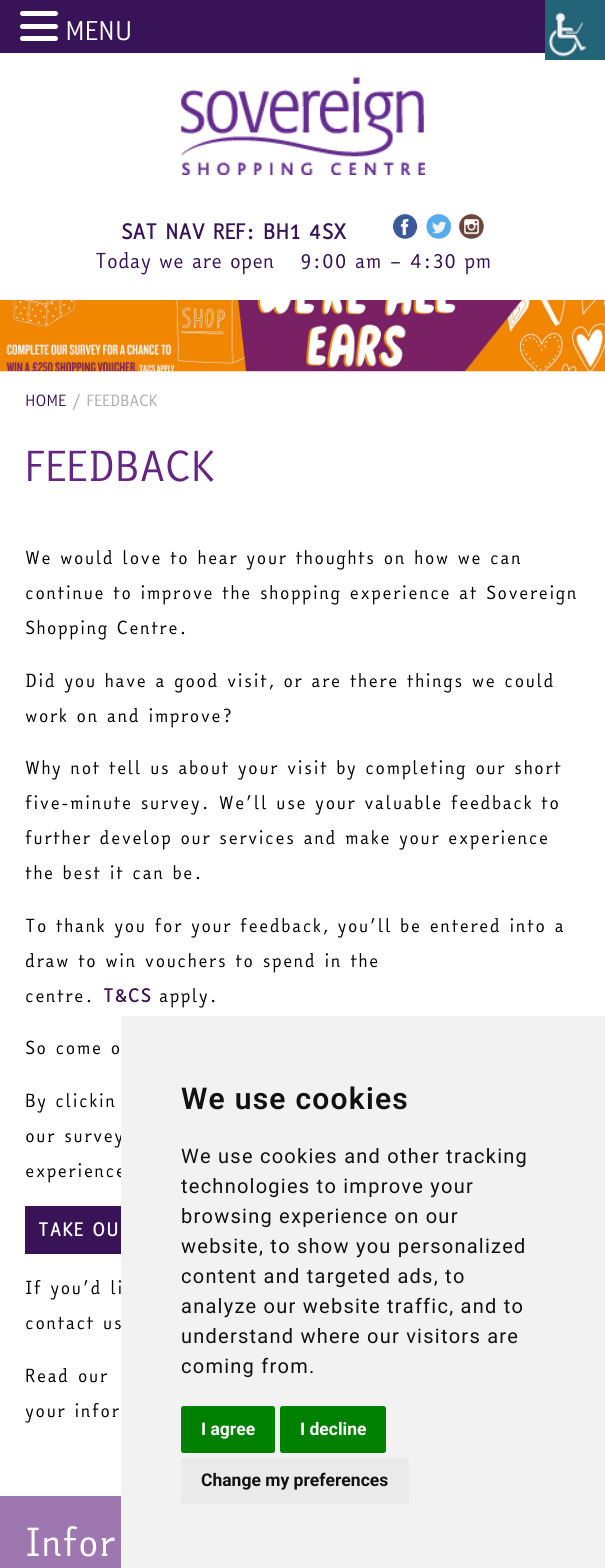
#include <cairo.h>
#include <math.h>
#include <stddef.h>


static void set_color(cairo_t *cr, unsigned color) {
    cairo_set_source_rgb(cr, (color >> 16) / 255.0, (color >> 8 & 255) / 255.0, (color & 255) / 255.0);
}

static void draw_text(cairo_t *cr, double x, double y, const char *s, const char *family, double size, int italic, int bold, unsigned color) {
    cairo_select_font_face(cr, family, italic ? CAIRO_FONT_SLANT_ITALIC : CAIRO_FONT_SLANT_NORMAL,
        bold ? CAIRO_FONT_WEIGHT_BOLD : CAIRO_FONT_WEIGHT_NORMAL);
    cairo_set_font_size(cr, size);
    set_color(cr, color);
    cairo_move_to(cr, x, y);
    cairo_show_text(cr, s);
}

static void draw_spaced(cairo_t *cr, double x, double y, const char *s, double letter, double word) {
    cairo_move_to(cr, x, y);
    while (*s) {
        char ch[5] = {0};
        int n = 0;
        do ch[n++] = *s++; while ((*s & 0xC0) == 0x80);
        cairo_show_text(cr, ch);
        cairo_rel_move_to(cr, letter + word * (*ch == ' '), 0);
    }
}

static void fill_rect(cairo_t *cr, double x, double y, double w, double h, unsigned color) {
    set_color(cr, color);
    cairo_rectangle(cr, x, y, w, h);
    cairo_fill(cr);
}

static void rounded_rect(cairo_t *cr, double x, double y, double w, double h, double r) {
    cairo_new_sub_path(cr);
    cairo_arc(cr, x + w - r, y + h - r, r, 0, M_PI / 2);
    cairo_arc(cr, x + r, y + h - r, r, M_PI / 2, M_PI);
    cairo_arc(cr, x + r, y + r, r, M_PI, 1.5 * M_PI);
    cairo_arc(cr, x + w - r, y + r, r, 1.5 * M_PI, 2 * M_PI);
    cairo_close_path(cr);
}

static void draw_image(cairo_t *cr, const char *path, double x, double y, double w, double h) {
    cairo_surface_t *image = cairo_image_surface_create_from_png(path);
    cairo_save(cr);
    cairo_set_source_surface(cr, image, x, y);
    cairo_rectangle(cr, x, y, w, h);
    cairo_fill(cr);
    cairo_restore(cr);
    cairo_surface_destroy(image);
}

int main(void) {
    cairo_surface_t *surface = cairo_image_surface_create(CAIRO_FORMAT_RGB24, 605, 1568);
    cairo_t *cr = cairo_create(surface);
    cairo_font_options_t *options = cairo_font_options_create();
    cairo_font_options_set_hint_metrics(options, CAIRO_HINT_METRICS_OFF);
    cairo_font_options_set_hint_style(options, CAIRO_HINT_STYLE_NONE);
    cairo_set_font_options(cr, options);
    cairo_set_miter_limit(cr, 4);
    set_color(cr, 0xFFFFFF);
    cairo_paint(cr);
    fill_rect(cr, 0, 0, 545, 53, 0x381357);
    set_color(cr, 0xFFFFFF);
    rounded_rect(cr, 20, 11, 38, 5, 2.5);
    cairo_fill(cr);
    rounded_rect(cr, 20, 24, 38, 5, 2.5);
    cairo_fill(cr);
    rounded_rect(cr, 20, 36, 38, 5, 2.5);
    cairo_fill(cr);
    draw_text(cr, 65, 40, "MENU", "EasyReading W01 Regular", 25, 0, 0, 0xFFFFFF);
    draw_image(cr, "assets/img1.png", 545, 0, 60, 60);
    draw_image(cr, "assets/img2.png", 181, 77, 244, 98);
    draw_text(cr, 121, 239, "SAT NAV REF: BH1 4SX", "EasyReading W01 Regular", 20, 0, 1, 0x381357);
    draw_image(cr, "assets/img3.png", 392, 213, 26, 26);
    draw_image(cr, "assets/img4.png", 426, 213, 26, 26);
    draw_image(cr, "assets/img5.png", 458, 213, 26, 26);
    draw_text(cr, 95, 268, "Today we are open", "EasyReading W01 Regular", 20, 0, 0, 0x381357);
    draw_text(cr, 300, 268, "9:00 am – 4:30 pm", "EasyReading W01 Regular", 20, 0, 0, 0x381357);
    draw_image(cr, "assets/img6.png", 0, 300, 605, 72);
    draw_text(cr, 25, 406, "HOME", "EasyReading W01 Regular", 15, 0, 0, 0x381357);
    draw_text(cr, 72, 406, "/ FEEDBACK", "EasyReading W01 Regular", 15, 0, 0, 0xAAAAAA);
    draw_text(cr, 25, 481, "FEEDBACK", "EasyReading W01 Regular", 40, 0, 0, 0x662483);
    cairo_set_font_size(cr, 17.5);
    set_color(cr, 0x000000);
    draw_spaced(cr, 25, 564, "We would love to hear your thoughts on how we can", 1.25, 0);
    draw_spaced(cr, 25, 599, "continue to improve the shopping experience at Sovereign", 1.25, 0);
    draw_spaced(cr, 25, 634, "Shopping Centre.", 1.25, 0);
    draw_spaced(cr, 25, 687, "Did you have a good visit, or are there things we could", 1.25, 0);
    draw_spaced(cr, 25, 722, "work on and improve?", 1.25, 0);
    draw_spaced(cr, 25, 774, "Why not tell us about your visit by completing our short", 1.25, 0);
    draw_spaced(cr, 25, 809, "five-minute survey. We’ll use your valuable feedback to", 1.25, 0);
    draw_spaced(cr, 25, 844, "further develop our services and make your experience", 1.25, 0);
    draw_spaced(cr, 25, 879, "the best it can be.", 1.25, 0);
    draw_spaced(cr, 25, 932, "To thank you for your feedback, you’ll be entered into a", 1.25, 0);
    draw_spaced(cr, 25, 967, "draw to win vouchers to spend in the", 1.25, 0);
    draw_spaced(cr, 25, 1002, "centre.", 1.25, 0);
    cairo_select_font_face(cr, "EasyReading W01 Regular", CAIRO_FONT_SLANT_NORMAL, CAIRO_FONT_WEIGHT_BOLD);
    set_color(cr, 0x381357);
    draw_spaced(cr, 103, 1002, "T&CS", 1.25, 0);
    cairo_select_font_face(cr, "EasyReading W01 Regular", CAIRO_FONT_SLANT_NORMAL, CAIRO_FONT_WEIGHT_NORMAL);
    set_color(cr, 0x000000);
    draw_spaced(cr, 159, 1002, "apply.", 1.25, 0);
    draw_spaced(cr, 25, 1054, "So come o", 1.25, 0);
    draw_spaced(cr, 25, 1107, "By clickin", 1.25, 0);
    draw_spaced(cr, 25, 1142, "our survey", 1.25, 0);
    draw_spaced(cr, 25, 1177, "experience", 1.25, 0);
    fill_rect(cr, 25, 1206, 96, 48, 0x381357);
    cairo_select_font_face(cr, "EasyReading W01 Regular", CAIRO_FONT_SLANT_NORMAL, CAIRO_FONT_WEIGHT_BOLD);
    set_color(cr, 0xFFFFFF);
    draw_spaced(cr, 38, 1236, "TAKE OU", 1.25, 0);
    cairo_select_font_face(cr, "EasyReading W01 Regular", CAIRO_FONT_SLANT_NORMAL, CAIRO_FONT_WEIGHT_NORMAL);
    set_color(cr, 0x000000);
    draw_spaced(cr, 25, 1294, "If you’d li", 1.25, 0);
    draw_spaced(cr, 25, 1329, "contact us", 1.25, 0);
    draw_spaced(cr, 25, 1382, "Read our", 1.25, 0);
    draw_spaced(cr, 25, 1417, "your infor", 1.25, 0);
    fill_rect(cr, 121, 1016, 484, 552, 0xF2F2F2);
    cairo_select_font_face(cr, "Roboto SemiBold", CAIRO_FONT_SLANT_NORMAL, CAIRO_FONT_WEIGHT_NORMAL);
    cairo_set_font_size(cr, 30);
    set_color(cr, 0x111111);
    draw_spaced(cr, 181, 1109, "We use cookies", 1.25, 0);
    cairo_select_font_face(cr, "Roboto", CAIRO_FONT_SLANT_NORMAL, CAIRO_FONT_WEIGHT_NORMAL);
    cairo_set_font_size(cr, 20);
    draw_spaced(cr, 181, 1163, "We use cookies and other tracking", 1.25, 0);
    draw_spaced(cr, 181, 1193, "technologies to improve your", 1.25, 0);
    draw_spaced(cr, 181, 1223, "browsing experience on our", 1.25, 0);
    draw_spaced(cr, 181, 1253, "website, to show you personalized", 1.25, 0);
    draw_spaced(cr, 181, 1283, "content and targeted ads, to", 1.25, 0);
    draw_spaced(cr, 181, 1313, "analyze our website traffic, and to", 1.25, 0);
    draw_spaced(cr, 181, 1343, "understand where our visitors are", 1.25, 0);
    draw_spaced(cr, 181, 1373, "coming from.", 1.25, 0);
    set_color(cr, 0x008000);
    rounded_rect(cr, 181, 1406, 94, 47, 2.5);
    cairo_fill(cr);
    draw_text(cr, 201, 1435, "I agree", "Roboto", 17.5, 0, 1, 0xFFFFFF);
    set_color(cr, 0x008000);
    rounded_rect(cr, 280, 1406, 106, 47, 2.5);
    cairo_fill(cr);
    draw_text(cr, 300, 1435, "I decline", "Roboto", 17.5, 0, 1, 0xFFFFFF);
    set_color(cr, 0xEAEAEA);
    rounded_rect(cr, 181, 1458, 228, 46, 2.5);
    cairo_fill(cr);
    draw_text(cr, 201, 1486, "Change my preferences", "Roboto", 17.5, 0, 1, 0x111111);
    fill_rect(cr, 0, 1496, 121, 72, 0x9E77B0);
    draw_text(cr, 25, 1556, "Infor", "EasyReading W01 Regular", 37.5, 0, 0, 0xFFFFFF);
    cairo_surface_write_to_png(surface, "output.png");
    cairo_font_options_destroy(options);
    cairo_destroy(cr);
    cairo_surface_destroy(surface);
    return 0;
}
